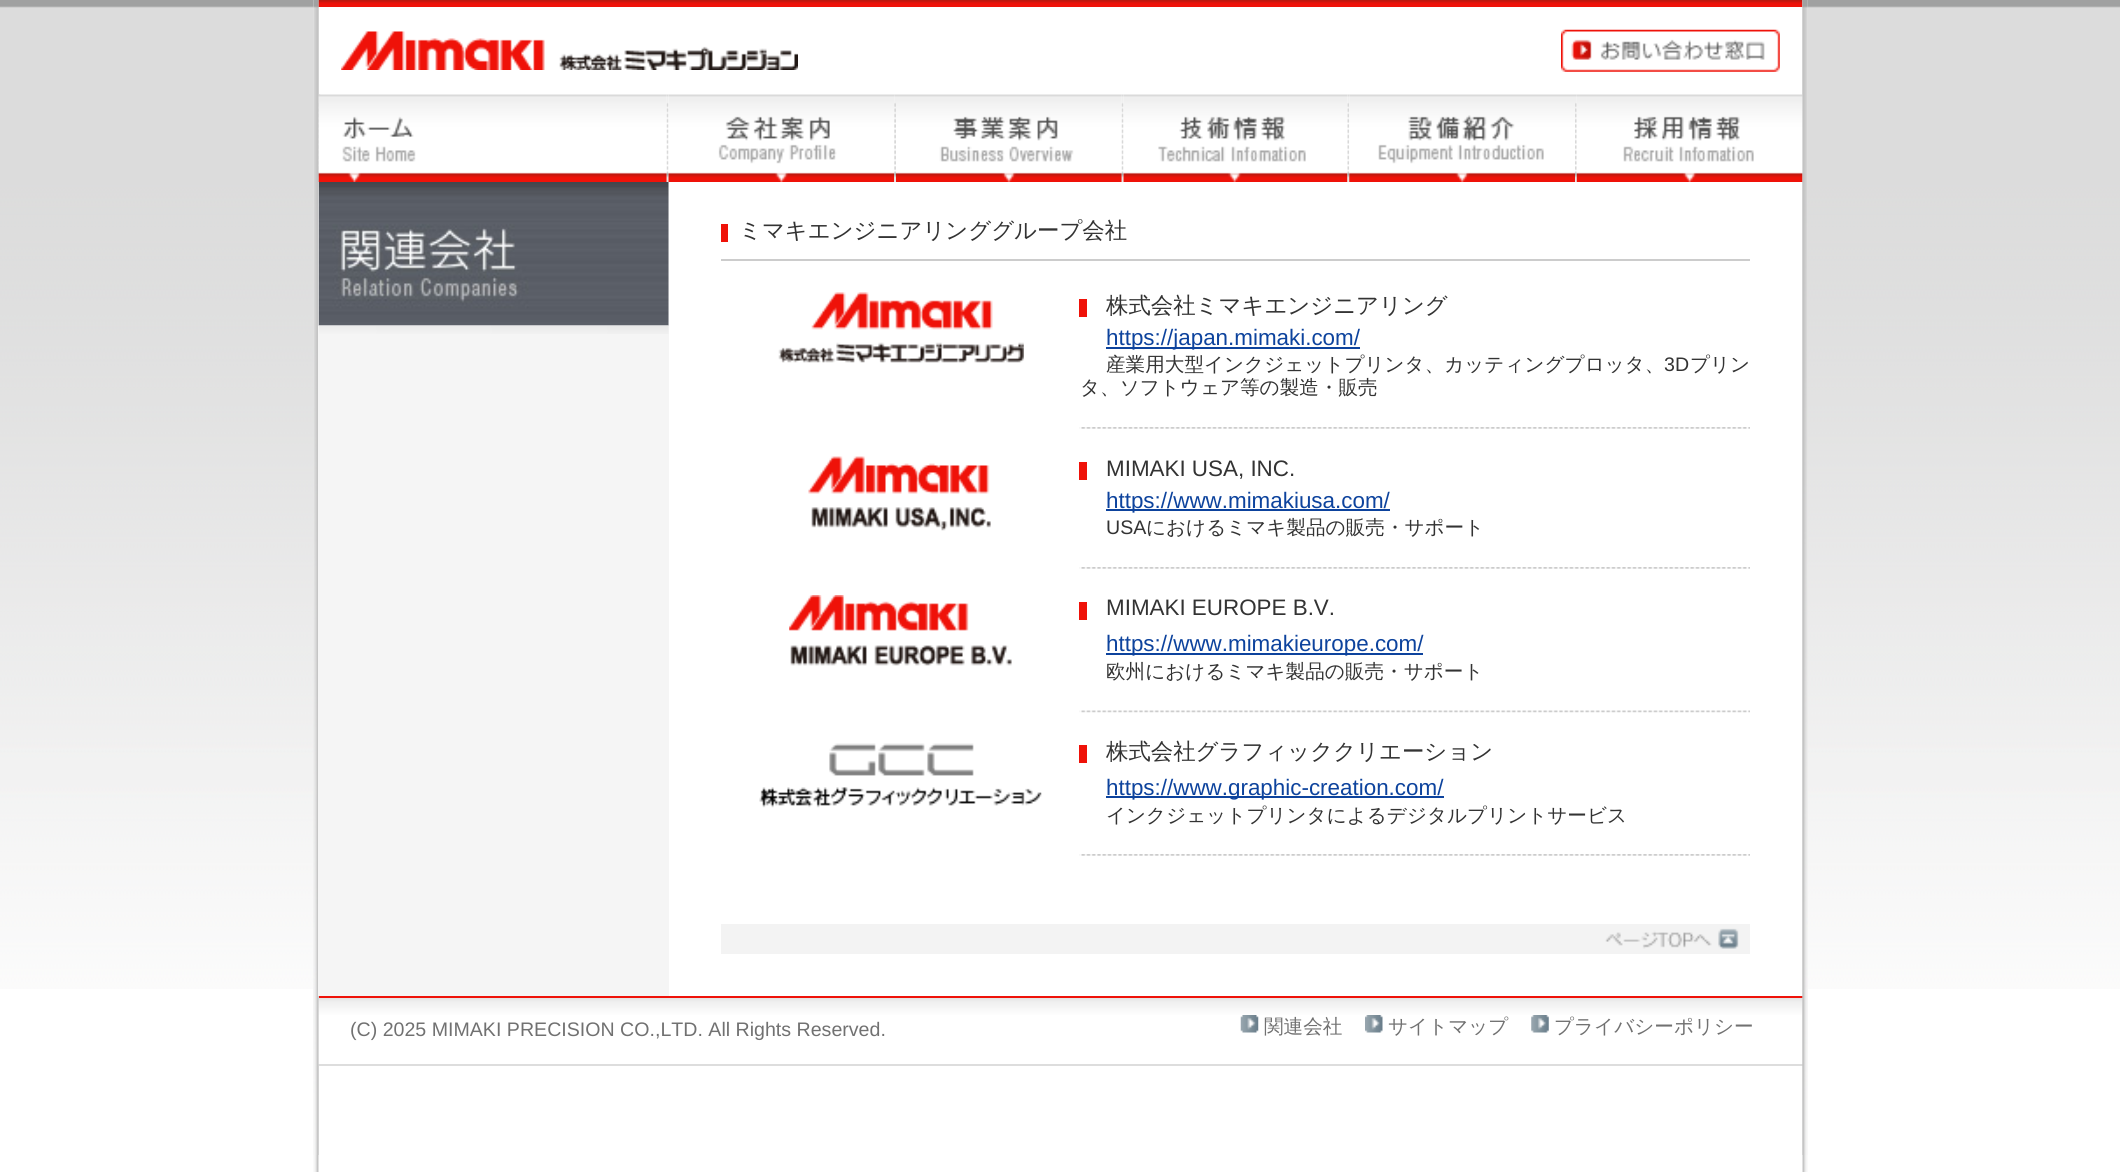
#include <cairo.h>
#include <math.h>
#include <stddef.h>


static void set_color(cairo_t *cr, unsigned color) {
    cairo_set_source_rgb(cr, (color >> 16) / 255.0, (color >> 8 & 255) / 255.0, (color & 255) / 255.0);
}

static void draw_text(cairo_t *cr, double x, double y, const char *s, const char *family, double size, int italic, int bold, unsigned color) {
    cairo_select_font_face(cr, family, italic ? CAIRO_FONT_SLANT_ITALIC : CAIRO_FONT_SLANT_NORMAL,
        bold ? CAIRO_FONT_WEIGHT_BOLD : CAIRO_FONT_WEIGHT_NORMAL);
    cairo_set_font_size(cr, size);
    set_color(cr, color);
    cairo_move_to(cr, x, y);
    cairo_show_text(cr, s);
}

static void fill_rect(cairo_t *cr, double x, double y, double w, double h, unsigned color) {
    set_color(cr, color);
    cairo_rectangle(cr, x, y, w, h);
    cairo_fill(cr);
}

static void draw_image(cairo_t *cr, const char *path, double x, double y, double w, double h) {
    cairo_surface_t *image = cairo_image_surface_create_from_png(path);
    cairo_save(cr);
    cairo_set_source_surface(cr, image, x, y);
    cairo_rectangle(cr, x, y, w, h);
    cairo_fill(cr);
    cairo_restore(cr);
    cairo_surface_destroy(image);
}

int main(void) {
    cairo_surface_t *surface = cairo_image_surface_create(CAIRO_FORMAT_RGB24, 2120, 1172);
    cairo_t *cr = cairo_create(surface);
    cairo_font_options_t *options = cairo_font_options_create();
    cairo_font_options_set_hint_metrics(options, CAIRO_HINT_METRICS_OFF);
    cairo_font_options_set_hint_style(options, CAIRO_HINT_STYLE_NONE);
    cairo_set_font_options(cr, options);
    cairo_set_miter_limit(cr, 4);
    set_color(cr, 0xFFFFFF);
    cairo_paint(cr);
    draw_image(cr, "assets/img1.png", 0, 0, 314, 989);
    draw_image(cr, "assets/img2.png", 313, 0, 6, 1172);
    draw_image(cr, "assets/img4.png", 318, 0, 1485, 7);
    draw_image(cr, "assets/img7.png", 318, 94, 3, 88);
    draw_image(cr, "assets/img8.png", 318, 94, 349, 88);
    draw_image(cr, "assets/img27.png", 318, 997, 1485, 67);
    draw_image(cr, "assets/img3.png", 313, 0, 6, 1155);
    draw_image(cr, "assets/img5.png", 341, 31, 457, 39);
    draw_image(cr, "assets/img6.png", 1561, 29, 219, 43);
    draw_image(cr, "assets/img9.png", 666, 94, 3, 88);
    draw_image(cr, "assets/img10.png", 668, 94, 227, 88);
    draw_image(cr, "assets/img11.png", 894, 94, 2, 88);
    draw_image(cr, "assets/img12.png", 896, 94, 226, 88);
    draw_image(cr, "assets/img9.png", 1121, 94, 3, 88);
    draw_image(cr, "assets/img13.png", 1123, 94, 225, 88);
    draw_image(cr, "assets/img14.png", 1347, 94, 3, 88);
    draw_image(cr, "assets/img15.png", 1349, 94, 226, 88);
    draw_image(cr, "assets/img16.png", 1575, 94, 2, 88);
    fill_rect(cr, 319, 996, 1484, 2, 0xEF1209);
    fill_rect(cr, 319, 1064, 1484, 2, 0xDDDDDD);
    draw_image(cr, "assets/img31.png", 1802, 0, 6, 1172);
    draw_image(cr, "assets/img17.png", 1576, 94, 227, 88);
    fill_rect(cr, 318, 182, 351, 814, 0xF5F5F5);
    draw_image(cr, "assets/img18.png", 318, 182, 351, 144);
    draw_image(cr, "assets/img19.png", 319, 325, 350, 9);
    fill_rect(cr, 721, 259, 1029, 2, 0xCCCCCC);
    fill_rect(cr, 721, 224, 7, 18, 0xEF1209);
    draw_text(cr, 739, 238, "ミマキエンジニアリンググループ会社", "WenQuanYi Zen Hei Medium", 22.4, 0, 0, 0x333333);
    draw_image(cr, "assets/img20.png", 778, 292, 246, 71);
    fill_rect(cr, 1079, 299, 8, 18, 0xEF1209);
    draw_text(cr, 1106, 313, "株式会社ミマキエンジニアリング", "WenQuanYi Zen Hei Medium", 22.4, 0, 0, 0x333333);
    fill_rect(cr, 1106, 347, 254, 2, 0x0D439D);
    draw_text(cr, 1106, 345, "https://japan.mimaki.com/", "Liberation Sans", 22.4, 0, 0, 0x0D439D);
    draw_text(cr, 1106, 371, "産業用大型インクジェットプリンタ、カッティングプロッタ、", "WenQuanYi Zen Hei Medium", 19.6, 0, 0, 0x333333);
    draw_text(cr, 1664, 371, "3D", "Liberation Sans", 19.6, 0, 0, 0x333333);
    draw_text(cr, 1690, 371, "プリン", "WenQuanYi Zen Hei Medium", 19.6, 0, 0, 0x333333);
    draw_text(cr, 1080, 394, "タ、ソフトウェア等の製造・販売", "WenQuanYi Zen Hei Medium", 19.6, 0, 0, 0x333333);
    draw_image(cr, "assets/img21.png", 1079, 427, 671, 2);
    draw_image(cr, "assets/img22.png", 808, 456, 183, 75);
    fill_rect(cr, 1079, 462, 8, 18, 0xEF1209);
    draw_text(cr, 1106, 476, "MIMAKI USA, INC.", "Liberation Sans", 22.4, 0, 0, 0x333333);
    fill_rect(cr, 1106, 509, 284, 2, 0x0D439D);
    draw_text(cr, 1106, 508, "https://www.mimakiusa.com/", "Liberation Sans", 22.4, 0, 0, 0x0D439D);
    draw_text(cr, 1106, 534, "USA", "Liberation Sans", 19.6, 0, 0, 0x333333);
    draw_text(cr, 1146, 534, "におけるミマキ製品の販売・サポート", "WenQuanYi Zen Hei Medium", 19.6, 0, 0, 0x333333);
    draw_image(cr, "assets/img21.png", 1079, 567, 671, 2);
    draw_image(cr, "assets/img23.png", 789, 595, 223, 71);
    fill_rect(cr, 1079, 602, 8, 18, 0xEF1209);
    draw_text(cr, 1106, 615, "MIMAKI EUROPE B.V.", "Liberation Sans", 22.4, 0, 0, 0x333333);
    fill_rect(cr, 1106, 653, 317, 2, 0x0D439D);
    draw_text(cr, 1106, 651, "https://www.mimakieurope.com/", "Liberation Sans", 22.4, 0, 0, 0x0D439D);
    draw_text(cr, 1106, 678, "欧州におけるミマキ製品の販売・サポート", "WenQuanYi Zen Hei Medium", 19.6, 0, 0, 0x333333);
    draw_image(cr, "assets/img24.png", 1079, 710, 671, 3);
    draw_image(cr, "assets/img25.png", 759, 743, 283, 65);
    fill_rect(cr, 1079, 745, 8, 18, 0xEF1209);
    draw_text(cr, 1106, 759, "株式会社グラフィッククリエーション", "WenQuanYi Zen Hei Medium", 22.4, 0, 0, 0x333333);
    fill_rect(cr, 1106, 796, 338, 2, 0x0D439D);
    draw_text(cr, 1106, 795, "https://www.graphic-creation.com/", "Liberation Sans", 22.4, 0, 0, 0x0D439D);
    draw_text(cr, 1106, 822, "インクジェットプリンタによるデジタルプリントサービス", "WenQuanYi Zen Hei Medium", 19.6, 0, 0, 0x333333);
    draw_image(cr, "assets/img21.png", 1079, 854, 671, 2);
    fill_rect(cr, 721, 924, 1029, 30, 0xF3F3F3);
    draw_image(cr, "assets/img26.png", 1605, 928, 134, 21);
    draw_text(cr, 350, 1036, "(C) 2025 MIMAKI PRECISION CO.,LTD. All Rights Reserved.", "Liberation Sans", 19.6, 0, 0, 0x717171);
    draw_image(cr, "assets/img28.png", 1240, 1015, 19, 18);
    draw_text(cr, 1264, 1033, "関連会社", "WenQuanYi Zen Hei Medium", 19.6, 0, 0, 0x717171);
    draw_image(cr, "assets/img29.png", 1365, 1015, 18, 18);
    draw_text(cr, 1388, 1033, "サイトマップ", "WenQuanYi Zen Hei Medium", 19.6, 0, 0, 0x717171);
    draw_image(cr, "assets/img30.png", 1531, 1015, 18, 18);
    draw_text(cr, 1554, 1033, "プライバシーポリシー", "WenQuanYi Zen Hei Medium", 19.6, 0, 0, 0x717171);
    draw_image(cr, "assets/img33.png", 1807, 0, 313, 989);
    draw_image(cr, "assets/img32.png", 1802, 0, 6, 1155);
    cairo_surface_write_to_png(surface, "output.png");
    cairo_font_options_destroy(options);
    cairo_destroy(cr);
    cairo_surface_destroy(surface);
    return 0;
}
